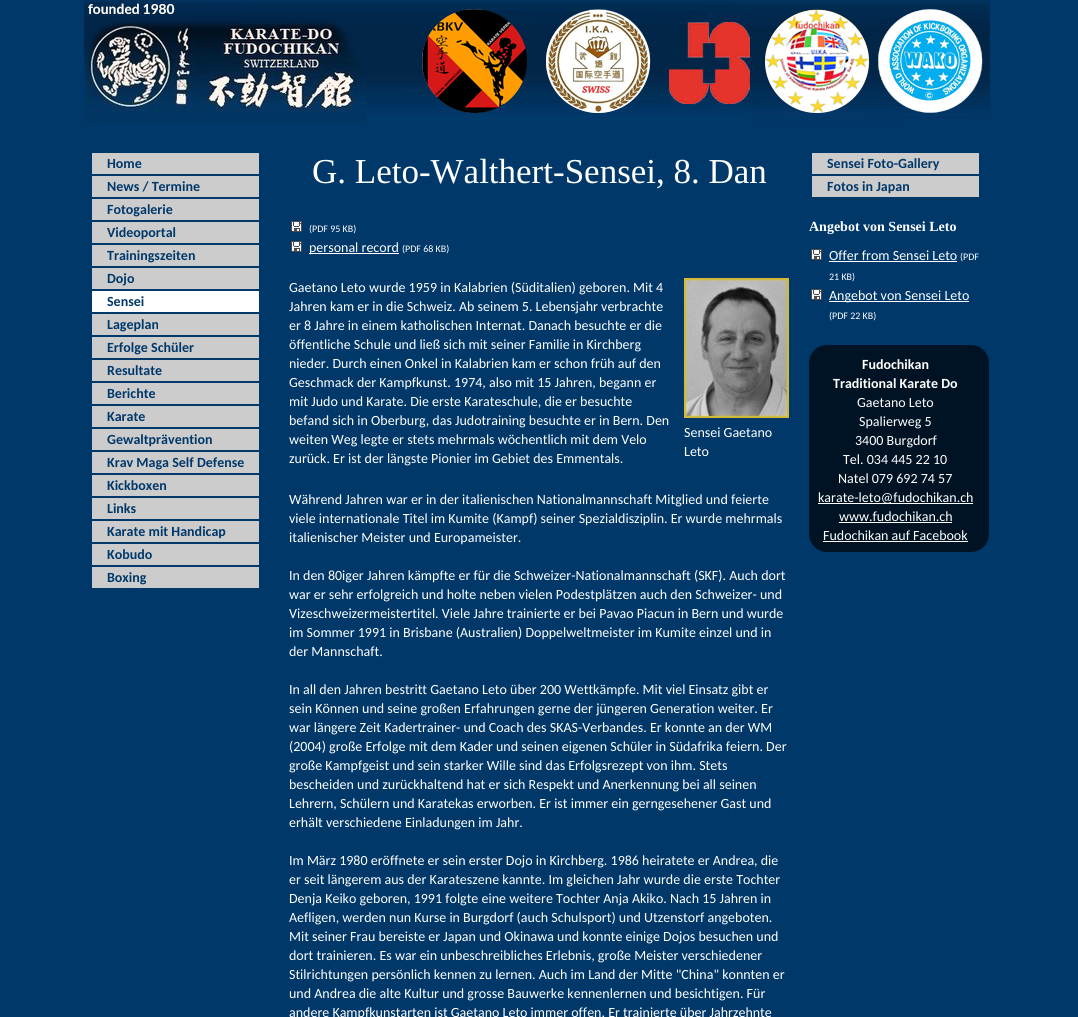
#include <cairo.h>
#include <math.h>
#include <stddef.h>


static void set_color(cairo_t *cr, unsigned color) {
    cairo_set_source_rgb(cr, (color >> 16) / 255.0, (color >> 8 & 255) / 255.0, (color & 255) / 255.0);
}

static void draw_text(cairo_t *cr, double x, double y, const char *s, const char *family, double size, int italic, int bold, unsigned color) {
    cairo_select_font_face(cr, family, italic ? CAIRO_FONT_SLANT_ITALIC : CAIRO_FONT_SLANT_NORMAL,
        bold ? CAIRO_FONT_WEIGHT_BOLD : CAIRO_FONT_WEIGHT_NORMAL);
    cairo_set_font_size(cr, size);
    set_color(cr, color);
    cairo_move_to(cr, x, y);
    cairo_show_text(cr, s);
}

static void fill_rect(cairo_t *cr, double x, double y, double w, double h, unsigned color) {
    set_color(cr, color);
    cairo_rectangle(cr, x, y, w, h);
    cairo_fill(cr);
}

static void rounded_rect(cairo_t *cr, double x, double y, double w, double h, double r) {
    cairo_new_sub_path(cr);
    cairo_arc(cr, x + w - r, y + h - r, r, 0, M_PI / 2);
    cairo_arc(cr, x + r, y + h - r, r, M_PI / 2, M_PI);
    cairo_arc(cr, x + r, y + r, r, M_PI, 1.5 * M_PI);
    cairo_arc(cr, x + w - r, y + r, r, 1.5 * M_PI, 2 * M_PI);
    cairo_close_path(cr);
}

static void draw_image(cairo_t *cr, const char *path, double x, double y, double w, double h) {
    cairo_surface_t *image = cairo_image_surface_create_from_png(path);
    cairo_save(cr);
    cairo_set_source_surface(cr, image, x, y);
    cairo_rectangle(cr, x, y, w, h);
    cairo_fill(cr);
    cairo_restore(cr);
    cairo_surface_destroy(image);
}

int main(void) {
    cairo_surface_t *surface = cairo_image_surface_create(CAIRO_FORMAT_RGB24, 1078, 1017);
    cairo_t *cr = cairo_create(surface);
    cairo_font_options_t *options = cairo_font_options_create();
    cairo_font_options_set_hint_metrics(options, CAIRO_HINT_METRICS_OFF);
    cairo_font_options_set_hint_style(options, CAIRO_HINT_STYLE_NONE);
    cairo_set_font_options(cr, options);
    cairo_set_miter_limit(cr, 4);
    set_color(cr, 0x003869);
    cairo_paint(cr);
    draw_image(cr, "assets/img1.png", 84, 0, 906, 122);
    fill_rect(cr, 92, 153, 167, 21, 0xCCCCCC);
    draw_text(cr, 107, 168, "Home", "Carlito", 14, 0, 1, 0x003869);
    fill_rect(cr, 92, 176, 167, 21, 0xCCCCCC);
    draw_text(cr, 107, 191, "News / Termine", "Carlito", 14, 0, 1, 0x003869);
    fill_rect(cr, 92, 199, 167, 21, 0xCCCCCC);
    draw_text(cr, 107, 214, "Fotogalerie", "Carlito", 14, 0, 1, 0x003869);
    fill_rect(cr, 92, 222, 167, 21, 0xCCCCCC);
    draw_text(cr, 107, 237, "Videoportal", "Carlito", 14, 0, 1, 0x003869);
    fill_rect(cr, 92, 245, 167, 21, 0xCCCCCC);
    draw_text(cr, 107, 260, "Trainingszeiten", "Carlito", 14, 0, 1, 0x003869);
    fill_rect(cr, 92, 268, 167, 21, 0xCCCCCC);
    draw_text(cr, 107, 283, "Dojo", "Carlito", 14, 0, 1, 0x003869);
    fill_rect(cr, 92, 291, 167, 21, 0xFFFFFF);
    draw_text(cr, 107, 306, "Sensei", "Carlito", 14, 0, 1, 0x003869);
    fill_rect(cr, 92, 314, 167, 21, 0xCCCCCC);
    draw_text(cr, 107, 329, "Lageplan", "Carlito", 14, 0, 1, 0x003869);
    fill_rect(cr, 92, 337, 167, 21, 0xCCCCCC);
    draw_text(cr, 107, 352, "Erfolge Schüler", "Carlito", 14, 0, 1, 0x003869);
    fill_rect(cr, 92, 360, 167, 21, 0xCCCCCC);
    draw_text(cr, 107, 375, "Resultate", "Carlito", 14, 0, 1, 0x003869);
    fill_rect(cr, 92, 383, 167, 21, 0xCCCCCC);
    draw_text(cr, 107, 398, "Berichte", "Carlito", 14, 0, 1, 0x003869);
    fill_rect(cr, 92, 406, 167, 21, 0xCCCCCC);
    draw_text(cr, 107, 421, "Karate", "Carlito", 14, 0, 1, 0x003869);
    fill_rect(cr, 92, 429, 167, 21, 0xCCCCCC);
    draw_text(cr, 107, 444, "Gewaltprävention", "Carlito", 14, 0, 1, 0x003869);
    fill_rect(cr, 92, 452, 167, 21, 0xCCCCCC);
    draw_text(cr, 107, 467, "Krav Maga Self Defense", "Carlito", 14, 0, 1, 0x003869);
    fill_rect(cr, 92, 475, 167, 21, 0xCCCCCC);
    draw_text(cr, 107, 490, "Kickboxen", "Carlito", 14, 0, 1, 0x003869);
    fill_rect(cr, 92, 498, 167, 21, 0xCCCCCC);
    draw_text(cr, 107, 513, "Links", "Carlito", 14, 0, 1, 0x003869);
    fill_rect(cr, 92, 521, 167, 21, 0xCCCCCC);
    draw_text(cr, 107, 536, "Karate mit Handicap", "Carlito", 14, 0, 1, 0x003869);
    fill_rect(cr, 92, 544, 167, 21, 0xCCCCCC);
    draw_text(cr, 107, 559, "Kobudo", "Carlito", 14, 0, 1, 0x003869);
    fill_rect(cr, 92, 567, 167, 21, 0xCCCCCC);
    draw_text(cr, 107, 582, "Boxing", "Carlito", 14, 0, 1, 0x003869);
    draw_text(cr, 312, 183, "G. Leto-Walthert-Sensei, 8. Dan", "Liberation Serif", 35, 0, 0, 0xFFFFFF);
    draw_image(cr, "assets/img2.png", 291, 221, 11, 11);
    draw_text(cr, 309, 232, "(PDF 95 KB)", "Carlito", 10, 0, 0, 0xFFFFFF);
    draw_image(cr, "assets/img2.png", 291, 241, 11, 11);
    fill_rect(cr, 309, 253, 90, 1, 0xFFFFFF);
    draw_text(cr, 309, 252, "personal record", "Carlito", 14, 0, 0, 0xFFFFFF);
    draw_text(cr, 402, 252, "(PDF 68 KB)", "Carlito", 10, 0, 0, 0xFFFFFF);
    draw_text(cr, 289, 292, "Gaetano Leto wurde 1959 in Kalabrien (Süditalien) geboren. Mit 4", "Carlito", 14, 0, 0, 0xFFFFFF);
    draw_text(cr, 289, 311, "Jahren kam er in die Schweiz. Ab seinem 5. Lebensjahr verbrachte", "Carlito", 14, 0, 0, 0xFFFFFF);
    draw_text(cr, 289, 330, "er 8 Jahre in einem katholischen Internat. Danach besuchte er die", "Carlito", 14, 0, 0, 0xFFFFFF);
    draw_text(cr, 289, 349, "öffentliche Schule und ließ sich mit seiner Familie in Kirchberg", "Carlito", 14, 0, 0, 0xFFFFFF);
    draw_text(cr, 289, 368, "nieder. Durch einen Onkel in Kalabrien kam er schon früh auf den", "Carlito", 14, 0, 0, 0xFFFFFF);
    draw_text(cr, 289, 387, "Geschmack der Kampfkunst. 1974, also mit 15 Jahren, begann er", "Carlito", 14, 0, 0, 0xFFFFFF);
    draw_text(cr, 289, 406, "mit Judo und Karate. Die erste Karateschule, die er besuchte", "Carlito", 14, 0, 0, 0xFFFFFF);
    draw_text(cr, 289, 425, "befand sich in Oberburg, das Judotraining besuchte er in Bern. Den", "Carlito", 14, 0, 0, 0xFFFFFF);
    draw_text(cr, 289, 444, "weiten Weg legte er stets mehrmals wöchentlich mit dem Velo", "Carlito", 14, 0, 0, 0xFFFFFF);
    draw_text(cr, 289, 463, "zurück. Er ist der längste Pionier im Gebiet des Emmentals.", "Carlito", 14, 0, 0, 0xFFFFFF);
    draw_text(cr, 289, 504, "Während Jahren war er in der italienischen Nationalmannschaft Mitglied und feierte", "Carlito", 14, 0, 0, 0xFFFFFF);
    draw_text(cr, 289, 523, "viele internationale Titel im Kumite (Kampf) seiner Spezialdisziplin. Er wurde mehrmals", "Carlito", 14, 0, 0, 0xFFFFFF);
    draw_text(cr, 289, 542, "italienischer Meister und Europameister.", "Carlito", 14, 0, 0, 0xFFFFFF);
    draw_text(cr, 289, 580, "In den 80iger Jahren kämpfte er für die Schweizer-Nationalmannschaft (SKF). Auch dort", "Carlito", 14, 0, 0, 0xFFFFFF);
    draw_text(cr, 289, 599, "war er sehr erfolgreich und holte neben vielen Podestplätzen auch den Schweizer- und", "Carlito", 14, 0, 0, 0xFFFFFF);
    draw_text(cr, 289, 618, "Vizeschweizermeistertitel. Viele Jahre trainierte er bei Pavao Piacun in Bern und wurde", "Carlito", 14, 0, 0, 0xFFFFFF);
    draw_text(cr, 289, 637, "im Sommer 1991 in Brisbane (Australien) Doppelweltmeister im Kumite einzel und in", "Carlito", 14, 0, 0, 0xFFFFFF);
    draw_text(cr, 289, 656, "der Mannschaft.", "Carlito", 14, 0, 0, 0xFFFFFF);
    draw_text(cr, 289, 694, "In all den Jahren bestritt Gaetano Leto über 200 Wettkämpfe. Mit viel Einsatz gibt er", "Carlito", 14, 0, 0, 0xFFFFFF);
    draw_text(cr, 289, 713, "sein Können und seine großen Erfahrungen gerne der jüngeren Generation weiter. Er", "Carlito", 14, 0, 0, 0xFFFFFF);
    draw_text(cr, 289, 732, "war längere Zeit Kadertrainer- und Coach des SKAS-Verbandes. Er konnte an der WM", "Carlito", 14, 0, 0, 0xFFFFFF);
    draw_text(cr, 289, 751, "(2004) große Erfolge mit dem Kader und seinen eigenen Schüler in Südafrika feiern. Der", "Carlito", 14, 0, 0, 0xFFFFFF);
    draw_text(cr, 289, 770, "große Kampfgeist und sein starker Wille sind das Erfolgsrezept von ihm. Stets", "Carlito", 14, 0, 0, 0xFFFFFF);
    draw_text(cr, 289, 789, "bescheiden und zurückhaltend hat er sich Respekt und Anerkennung bei all seinen", "Carlito", 14, 0, 0, 0xFFFFFF);
    draw_text(cr, 289, 808, "Lehrern, Schülern und Karatekas erworben. Er ist immer ein gerngesehener Gast und", "Carlito", 14, 0, 0, 0xFFFFFF);
    draw_text(cr, 289, 827, "erhält verschiedene Einladungen im Jahr.", "Carlito", 14, 0, 0, 0xFFFFFF);
    draw_text(cr, 289, 865, "Im März 1980 eröffnete er sein erster Dojo in Kirchberg. 1986 heiratete er Andrea, die", "Carlito", 14, 0, 0, 0xFFFFFF);
    draw_text(cr, 289, 884, "er seit längerem aus der Karateszene kannte. Im gleichen Jahr wurde die erste Tochter", "Carlito", 14, 0, 0, 0xFFFFFF);
    draw_text(cr, 289, 903, "Denja Keiko geboren, 1991 folgte eine weitere Tochter Anja Akiko. Nach 15 Jahren in", "Carlito", 14, 0, 0, 0xFFFFFF);
    draw_text(cr, 289, 922, "Aefligen, werden nun Kurse in Burgdorf (auch Schulsport) und Utzenstorf angeboten.", "Carlito", 14, 0, 0, 0xFFFFFF);
    draw_text(cr, 289, 941, "Mit seiner Frau bereiste er Japan und Okinawa und konnte einige Dojos besuchen und", "Carlito", 14, 0, 0, 0xFFFFFF);
    draw_text(cr, 289, 960, "dort trainieren. Es war ein unbeschreibliches Erlebnis, große Meister verschiedener", "Carlito", 14, 0, 0, 0xFFFFFF);
    draw_text(cr, 289, 979, "Stilrichtungen persönlich kennen zu lernen. Auch im Land der Mitte \"China\" konnten er", "Carlito", 14, 0, 0, 0xFFFFFF);
    draw_text(cr, 289, 998, "und Andrea die alte Kultur und grosse Bauwerke kennenlernen und besichtigen. Für", "Carlito", 14, 0, 0, 0xFFFFFF);
    draw_text(cr, 289, 1017, "andere Kampfkunstarten ist Gaetano Leto immer offen. Er trainierte über Jahrzehnte", "Carlito", 14, 0, 0, 0xFFFFFF);
    draw_image(cr, "assets/img3.png", 684, 278, 105, 140);
    draw_text(cr, 684, 437, "Sensei Gaetano", "Carlito", 14, 0, 0, 0xFFFFFF);
    draw_text(cr, 684, 456, "Leto", "Carlito", 14, 0, 0, 0xFFFFFF);
    fill_rect(cr, 812, 153, 167, 21, 0xCCCCCC);
    draw_text(cr, 827, 168, "Sensei Foto-Gallery", "Carlito", 14, 0, 1, 0x003869);
    fill_rect(cr, 812, 176, 167, 21, 0xCCCCCC);
    draw_text(cr, 827, 191, "Fotos in Japan", "Carlito", 14, 0, 1, 0x003869);
    draw_text(cr, 809, 231, "Angebot von Sensei Leto", "Liberation Serif", 14, 0, 1, 0xFFFFFF);
    draw_image(cr, "assets/img2.png", 811, 249, 11, 11);
    draw_text(cr, 829, 260, "Offer from Sensei Leto", "Carlito", 14, 0, 0, 0xFFFFFF);
    fill_rect(cr, 829, 261, 128, 1, 0xFFFFFF);
    draw_text(cr, 960, 260, "(PDF", "Carlito", 10, 0, 0, 0xFFFFFF);
    draw_text(cr, 829, 280, "21 KB)", "Carlito", 10, 0, 0, 0xFFFFFF);
    draw_image(cr, "assets/img2.png", 811, 289, 11, 11);
    fill_rect(cr, 829, 301, 140, 1, 0xFFFFFF);
    draw_text(cr, 829, 300, "Angebot von Sensei Leto", "Carlito", 14, 0, 0, 0xFFFFFF);
    draw_text(cr, 829, 319, "(PDF 22 KB)", "Carlito", 10, 0, 0, 0xFFFFFF);
    set_color(cr, 0x001324);
    rounded_rect(cr, 809, 345, 180, 207, 18);
    cairo_fill(cr);
    draw_text(cr, 862, 369, "Fudochikan", "Carlito", 14, 0, 1, 0xFFFFFF);
    draw_text(cr, 833, 388, "Traditional Karate Do", "Carlito", 14, 0, 1, 0xFFFFFF);
    draw_text(cr, 857, 407, "Gaetano Leto", "Carlito", 14, 0, 0, 0xFFFFFF);
    draw_text(cr, 859, 426, "Spalierweg 5", "Carlito", 14, 0, 0, 0xFFFFFF);
    draw_text(cr, 855, 445, "3400 Burgdorf", "Carlito", 14, 0, 0, 0xFFFFFF);
    draw_text(cr, 843, 464, "Tel. 034 445 22 10", "Carlito", 14, 0, 0, 0xFFFFFF);
    draw_text(cr, 838, 483, "Natel 079 692 74 57", "Carlito", 14, 0, 0, 0xFFFFFF);
    fill_rect(cr, 818, 503, 155, 1, 0xFFFFFF);
    draw_text(cr, 818, 502, "karate-leto@fudochikan.ch", "Carlito", 14, 0, 0, 0xFFFFFF);
    draw_text(cr, 839, 521, "www.fudochikan.ch", "Carlito", 14, 0, 0, 0xFFFFFF);
    fill_rect(cr, 839, 522, 113, 1, 0xFFFFFF);
    draw_text(cr, 823, 540, "Fudochikan auf Facebook", "Carlito", 14, 0, 0, 0xFFFFFF);
    fill_rect(cr, 823, 541, 145, 1, 0xFFFFFF);
    cairo_surface_write_to_png(surface, "output.png");
    cairo_font_options_destroy(options);
    cairo_destroy(cr);
    cairo_surface_destroy(surface);
    return 0;
}
